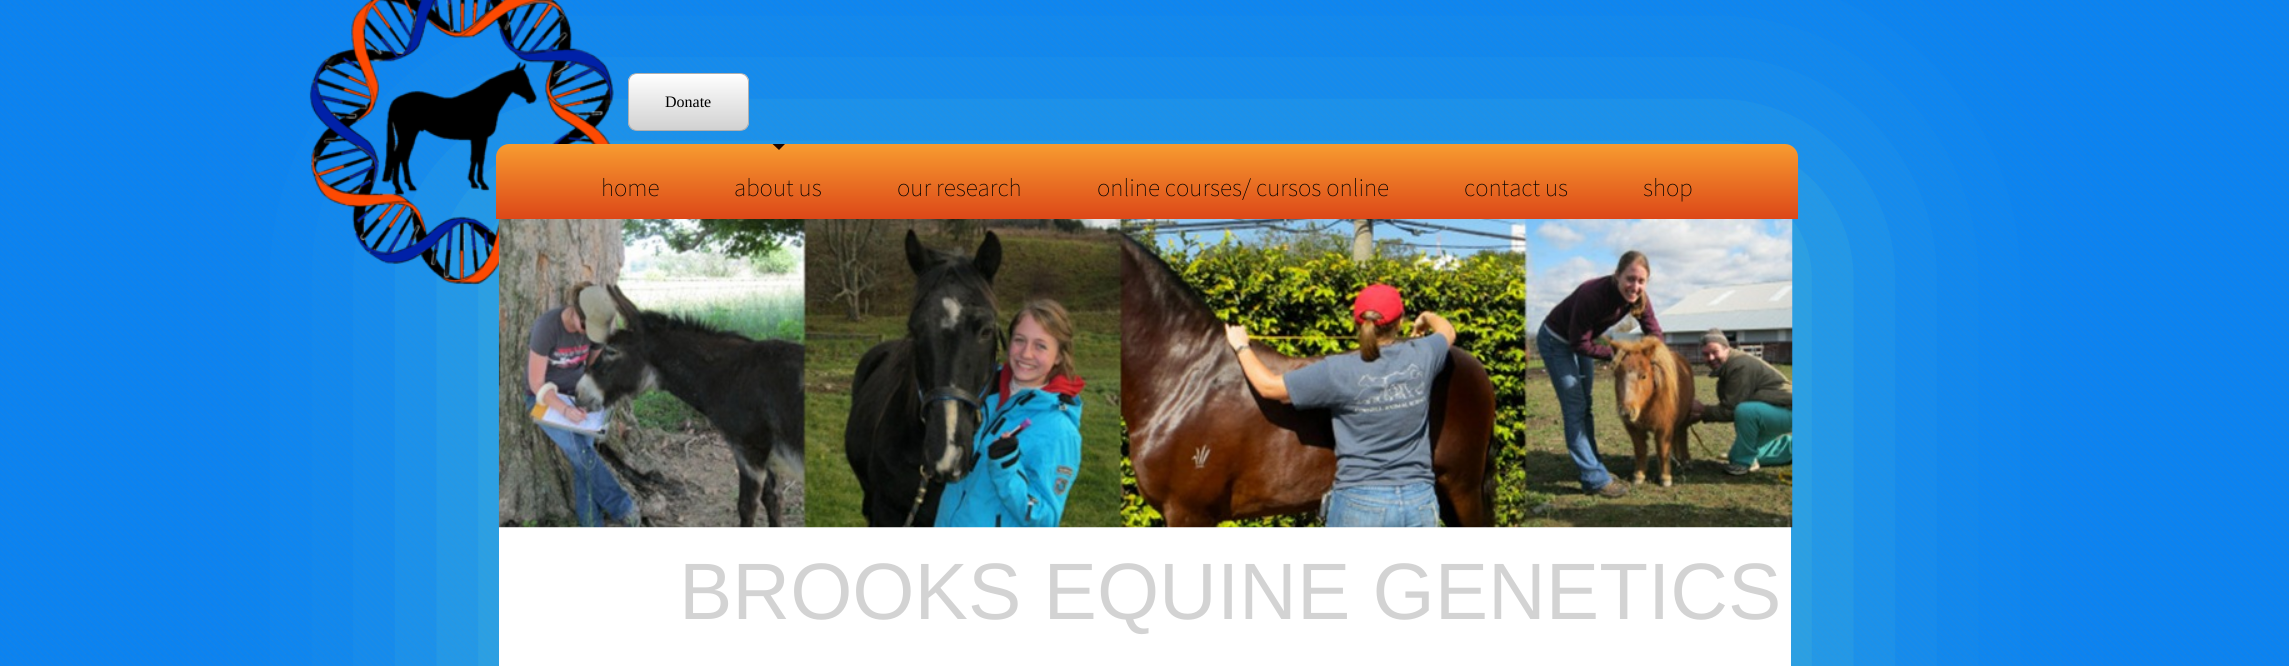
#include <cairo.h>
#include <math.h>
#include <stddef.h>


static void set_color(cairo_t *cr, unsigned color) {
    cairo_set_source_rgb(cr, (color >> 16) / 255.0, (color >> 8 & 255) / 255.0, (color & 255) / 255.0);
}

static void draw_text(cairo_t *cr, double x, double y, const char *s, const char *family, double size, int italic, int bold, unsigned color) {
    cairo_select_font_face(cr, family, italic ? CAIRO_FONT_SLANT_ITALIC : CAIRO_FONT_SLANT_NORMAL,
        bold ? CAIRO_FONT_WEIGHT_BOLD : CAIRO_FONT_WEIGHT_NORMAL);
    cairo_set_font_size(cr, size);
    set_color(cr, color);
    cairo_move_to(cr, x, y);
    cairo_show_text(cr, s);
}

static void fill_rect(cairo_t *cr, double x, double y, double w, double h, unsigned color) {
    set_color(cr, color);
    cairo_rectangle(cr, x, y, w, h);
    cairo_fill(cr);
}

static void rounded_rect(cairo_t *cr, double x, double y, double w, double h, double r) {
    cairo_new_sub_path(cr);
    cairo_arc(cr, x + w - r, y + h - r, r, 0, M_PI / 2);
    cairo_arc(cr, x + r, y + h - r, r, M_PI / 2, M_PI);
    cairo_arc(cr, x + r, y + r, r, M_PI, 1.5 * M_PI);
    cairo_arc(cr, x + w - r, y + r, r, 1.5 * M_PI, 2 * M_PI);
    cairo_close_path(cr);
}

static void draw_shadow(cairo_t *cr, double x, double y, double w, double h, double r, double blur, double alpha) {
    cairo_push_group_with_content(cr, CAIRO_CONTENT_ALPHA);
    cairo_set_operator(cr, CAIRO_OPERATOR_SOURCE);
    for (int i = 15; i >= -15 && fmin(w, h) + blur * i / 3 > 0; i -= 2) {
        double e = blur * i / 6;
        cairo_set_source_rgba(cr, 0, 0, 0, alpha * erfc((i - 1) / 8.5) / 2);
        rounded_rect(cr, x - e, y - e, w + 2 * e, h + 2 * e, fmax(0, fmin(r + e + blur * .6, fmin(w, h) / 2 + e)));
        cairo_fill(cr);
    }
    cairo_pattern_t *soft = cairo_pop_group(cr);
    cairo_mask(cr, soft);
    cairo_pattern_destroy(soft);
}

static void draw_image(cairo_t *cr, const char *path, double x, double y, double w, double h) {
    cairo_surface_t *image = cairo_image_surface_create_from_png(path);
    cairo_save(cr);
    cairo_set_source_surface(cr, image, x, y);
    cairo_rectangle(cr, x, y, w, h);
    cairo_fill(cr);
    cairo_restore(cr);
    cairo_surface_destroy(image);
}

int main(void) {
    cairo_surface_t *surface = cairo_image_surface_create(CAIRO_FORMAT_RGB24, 2289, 666);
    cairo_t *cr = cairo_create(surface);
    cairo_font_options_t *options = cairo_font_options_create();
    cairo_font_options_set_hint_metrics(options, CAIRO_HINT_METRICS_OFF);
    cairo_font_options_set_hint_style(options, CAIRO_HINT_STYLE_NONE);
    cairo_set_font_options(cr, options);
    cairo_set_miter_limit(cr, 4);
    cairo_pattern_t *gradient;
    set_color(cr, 0x007FFF);
    cairo_paint(cr);
    draw_image(cr, "assets/img1.png", 0, 0, 2289, 666);
    set_color(cr, 0x4CBBD6);
    draw_shadow(cr, 499, 203, 1292, 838, 0, 125, 1);
    fill_rect(cr, 499, 527, 1292, 139, 0xFFFFFF);
    draw_image(cr, "assets/img2.png", 309, 0, 305, 285);
    cairo_save(cr);
    rounded_rect(cr, 628, 73, 121, 58, 9);
    cairo_clip(cr);
    gradient = cairo_pattern_create_linear(688, 74, 688, 130);
    cairo_pattern_add_color_stop_rgba(gradient, 0, 1, 1, 1, 1);
    cairo_pattern_add_color_stop_rgba(gradient, 1, 0.82, 0.82, 0.82, 1);
    cairo_set_source(cr, gradient);
    cairo_pattern_destroy(gradient);
    cairo_rectangle(cr, 628, 74, 121, 56);
    cairo_fill(cr);
    cairo_restore(cr);
    rounded_rect(cr, 628.5, 73.5, 120, 57, 8.5);
    set_color(cr, 0xAFAFAF);
    cairo_set_line_width(cr, 1);
    cairo_stroke(cr);
    draw_text(cr, 665, 107, "Donate", "Liberation Serif", 16, 0, 0, 0x000000);
    gradient = cairo_pattern_create_linear(1147, 144, 1147, 219);
    cairo_pattern_add_color_stop_rgba(gradient, 0, 0.969, 0.612, 0.188, 1);
    cairo_pattern_add_color_stop_rgba(gradient, 1, 0.863, 0.278, 0.094, 1);
    cairo_set_source(cr, gradient);
    cairo_pattern_destroy(gradient);
    cairo_new_path(cr);
    cairo_move_to(cr, 509, 144);
    cairo_line_to(cr, 1785, 144);
    cairo_curve_to(cr, 1792, 144, 1798, 150, 1798, 157);
    cairo_line_to(cr, 1798, 219);
    cairo_line_to(cr, 496, 219);
    cairo_line_to(cr, 496, 157);
    cairo_curve_to(cr, 496, 150, 502, 144, 509, 144);
    cairo_close_path(cr);
    cairo_fill(cr);
    draw_text(cr, 601, 196, "home", "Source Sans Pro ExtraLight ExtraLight", 25, 0, 0, 0x000000);
    set_color(cr, 0x1E0900);
    cairo_new_path(cr);
    cairo_move_to(cr, 772.5, 144);
    cairo_line_to(cr, 785, 144);
    cairo_line_to(cr, 779, 150);
    cairo_close_path(cr);
    cairo_fill(cr);
    draw_text(cr, 734, 196, "about us", "Source Sans Pro ExtraLight ExtraLight", 25, 0, 0, 0x000000);
    draw_text(cr, 897, 196, "our research", "Source Sans Pro ExtraLight ExtraLight", 25, 0, 0, 0x000000);
    draw_text(cr, 1097, 196, "online courses/ cursos online", "Source Sans Pro ExtraLight ExtraLight", 25, 0, 0, 0x000000);
    draw_text(cr, 1464, 196, "contact us", "Source Sans Pro ExtraLight ExtraLight", 25, 0, 0, 0x000000);
    draw_text(cr, 1643, 196, "shop", "Source Sans Pro ExtraLight ExtraLight", 25, 0, 0, 0x000000);
    draw_image(cr, "assets/img3.png", 498, 219, 1295, 309);
    draw_text(cr, 679, 619, "BROOKS EQUINE GENETICS", "Liberation Sans", 80, 0, 0, 0xD3D3D3);
    cairo_surface_write_to_png(surface, "output.png");
    cairo_font_options_destroy(options);
    cairo_destroy(cr);
    cairo_surface_destroy(surface);
    return 0;
}
